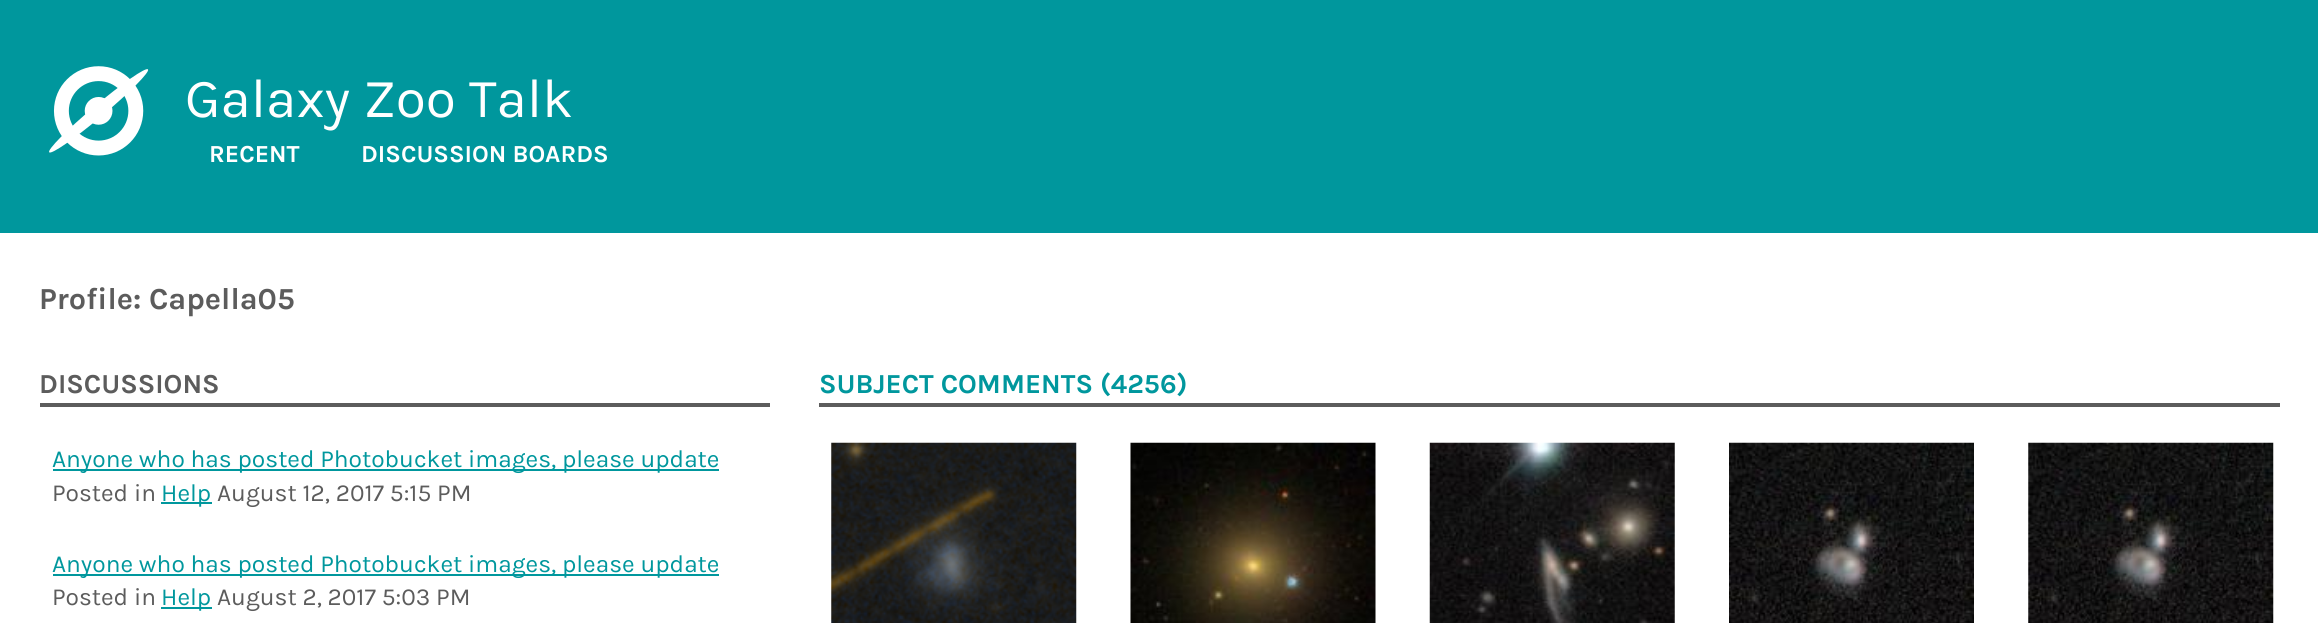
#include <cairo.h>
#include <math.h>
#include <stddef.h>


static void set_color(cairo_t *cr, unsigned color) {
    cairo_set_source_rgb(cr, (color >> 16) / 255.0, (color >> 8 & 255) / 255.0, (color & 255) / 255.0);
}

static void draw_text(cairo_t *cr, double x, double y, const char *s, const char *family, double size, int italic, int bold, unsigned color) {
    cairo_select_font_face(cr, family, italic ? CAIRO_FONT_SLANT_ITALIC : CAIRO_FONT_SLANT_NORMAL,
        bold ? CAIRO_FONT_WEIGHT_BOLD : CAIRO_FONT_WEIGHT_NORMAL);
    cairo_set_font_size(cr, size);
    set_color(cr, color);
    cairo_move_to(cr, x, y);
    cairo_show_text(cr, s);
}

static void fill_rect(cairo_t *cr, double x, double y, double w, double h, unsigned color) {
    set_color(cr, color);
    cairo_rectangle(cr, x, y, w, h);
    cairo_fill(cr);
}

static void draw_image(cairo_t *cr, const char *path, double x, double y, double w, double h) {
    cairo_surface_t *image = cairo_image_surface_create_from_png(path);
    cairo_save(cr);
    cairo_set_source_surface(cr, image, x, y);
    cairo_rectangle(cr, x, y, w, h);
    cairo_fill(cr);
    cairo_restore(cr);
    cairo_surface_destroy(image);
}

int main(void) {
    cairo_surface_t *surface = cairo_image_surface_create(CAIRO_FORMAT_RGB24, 2318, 623);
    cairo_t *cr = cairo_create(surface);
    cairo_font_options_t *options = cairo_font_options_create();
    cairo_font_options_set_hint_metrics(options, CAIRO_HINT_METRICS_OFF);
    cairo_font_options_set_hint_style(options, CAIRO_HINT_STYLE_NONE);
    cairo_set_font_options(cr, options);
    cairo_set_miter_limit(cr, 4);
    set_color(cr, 0xFFFFFF);
    cairo_paint(cr);
    fill_rect(cr, 0, 0, 2318, 233, 0x00979D);
    draw_image(cr, "assets/img1.png", 49, 66, 100, 90);
    draw_text(cr, 185, 117, "Galaxy Zoo Talk", "Karla", 55, 0, 0, 0xFFFFFF);
    draw_text(cr, 209, 162, "RECENT", "Karla", 24.5, 0, 1, 0xFFFFFF);
    draw_text(cr, 361, 162, "DISCUSSION BOARDS", "Karla", 24.5, 0, 1, 0xFFFFFF);
    draw_text(cr, 39, 309, "Profile: Capella05", "Karla", 30.6, 0, 1, 0x5C5C5C);
    fill_rect(cr, 40, 403, 730, 4, 0x5C5C5C);
    draw_text(cr, 39, 393, "DISCUSSIONS", "Karla", 27.5, 0, 1, 0x5C5C5C);
    fill_rect(cr, 53, 469, 666, 2, 0x00979D);
    draw_text(cr, 52, 467, "Anyone who has posted Photobucket images, please update", "Karla", 24.5, 0, 0, 0x00979D);
    draw_text(cr, 52, 501, "Posted in", "Karla", 24.5, 0, 0, 0x5C5C5C);
    fill_rect(cr, 161, 502, 51, 2, 0x00979D);
    draw_text(cr, 161, 501, "Help", "Karla", 24.5, 0, 0, 0x00979D);
    draw_text(cr, 217, 501, "August 12, 2017 5:15 PM", "Karla", 24.5, 0, 0, 0x5C5C5C);
    fill_rect(cr, 53, 574, 666, 2, 0x00979D);
    draw_text(cr, 52, 572, "Anyone who has posted Photobucket images, please update", "Karla", 24.5, 0, 0, 0x00979D);
    draw_text(cr, 52, 605, "Posted in", "Karla", 24.5, 0, 0, 0x5C5C5C);
    fill_rect(cr, 161, 607, 51, 2, 0x00979D);
    draw_text(cr, 161, 605, "Help", "Karla", 24.5, 0, 0, 0x00979D);
    draw_text(cr, 217, 605, "August 2, 2017 5:03 PM", "Karla", 24.5, 0, 0, 0x5C5C5C);
    fill_rect(cr, 819, 403, 1461, 4, 0x5C5C5C);
    draw_text(cr, 819, 393, "SUBJECT COMMENTS (4256)", "Karla", 27.5, 0, 1, 0x00979D);
    draw_image(cr, "assets/img2.png", 831, 442, 246, 181);
    draw_image(cr, "assets/img3.png", 1130, 442, 246, 181);
    draw_image(cr, "assets/img4.png", 1429, 442, 246, 181);
    draw_image(cr, "assets/img5.png", 1729, 442, 245, 181);
    draw_image(cr, "assets/img6.png", 2028, 442, 246, 181);
    cairo_surface_write_to_png(surface, "output.png");
    cairo_font_options_destroy(options);
    cairo_destroy(cr);
    cairo_surface_destroy(surface);
    return 0;
}
